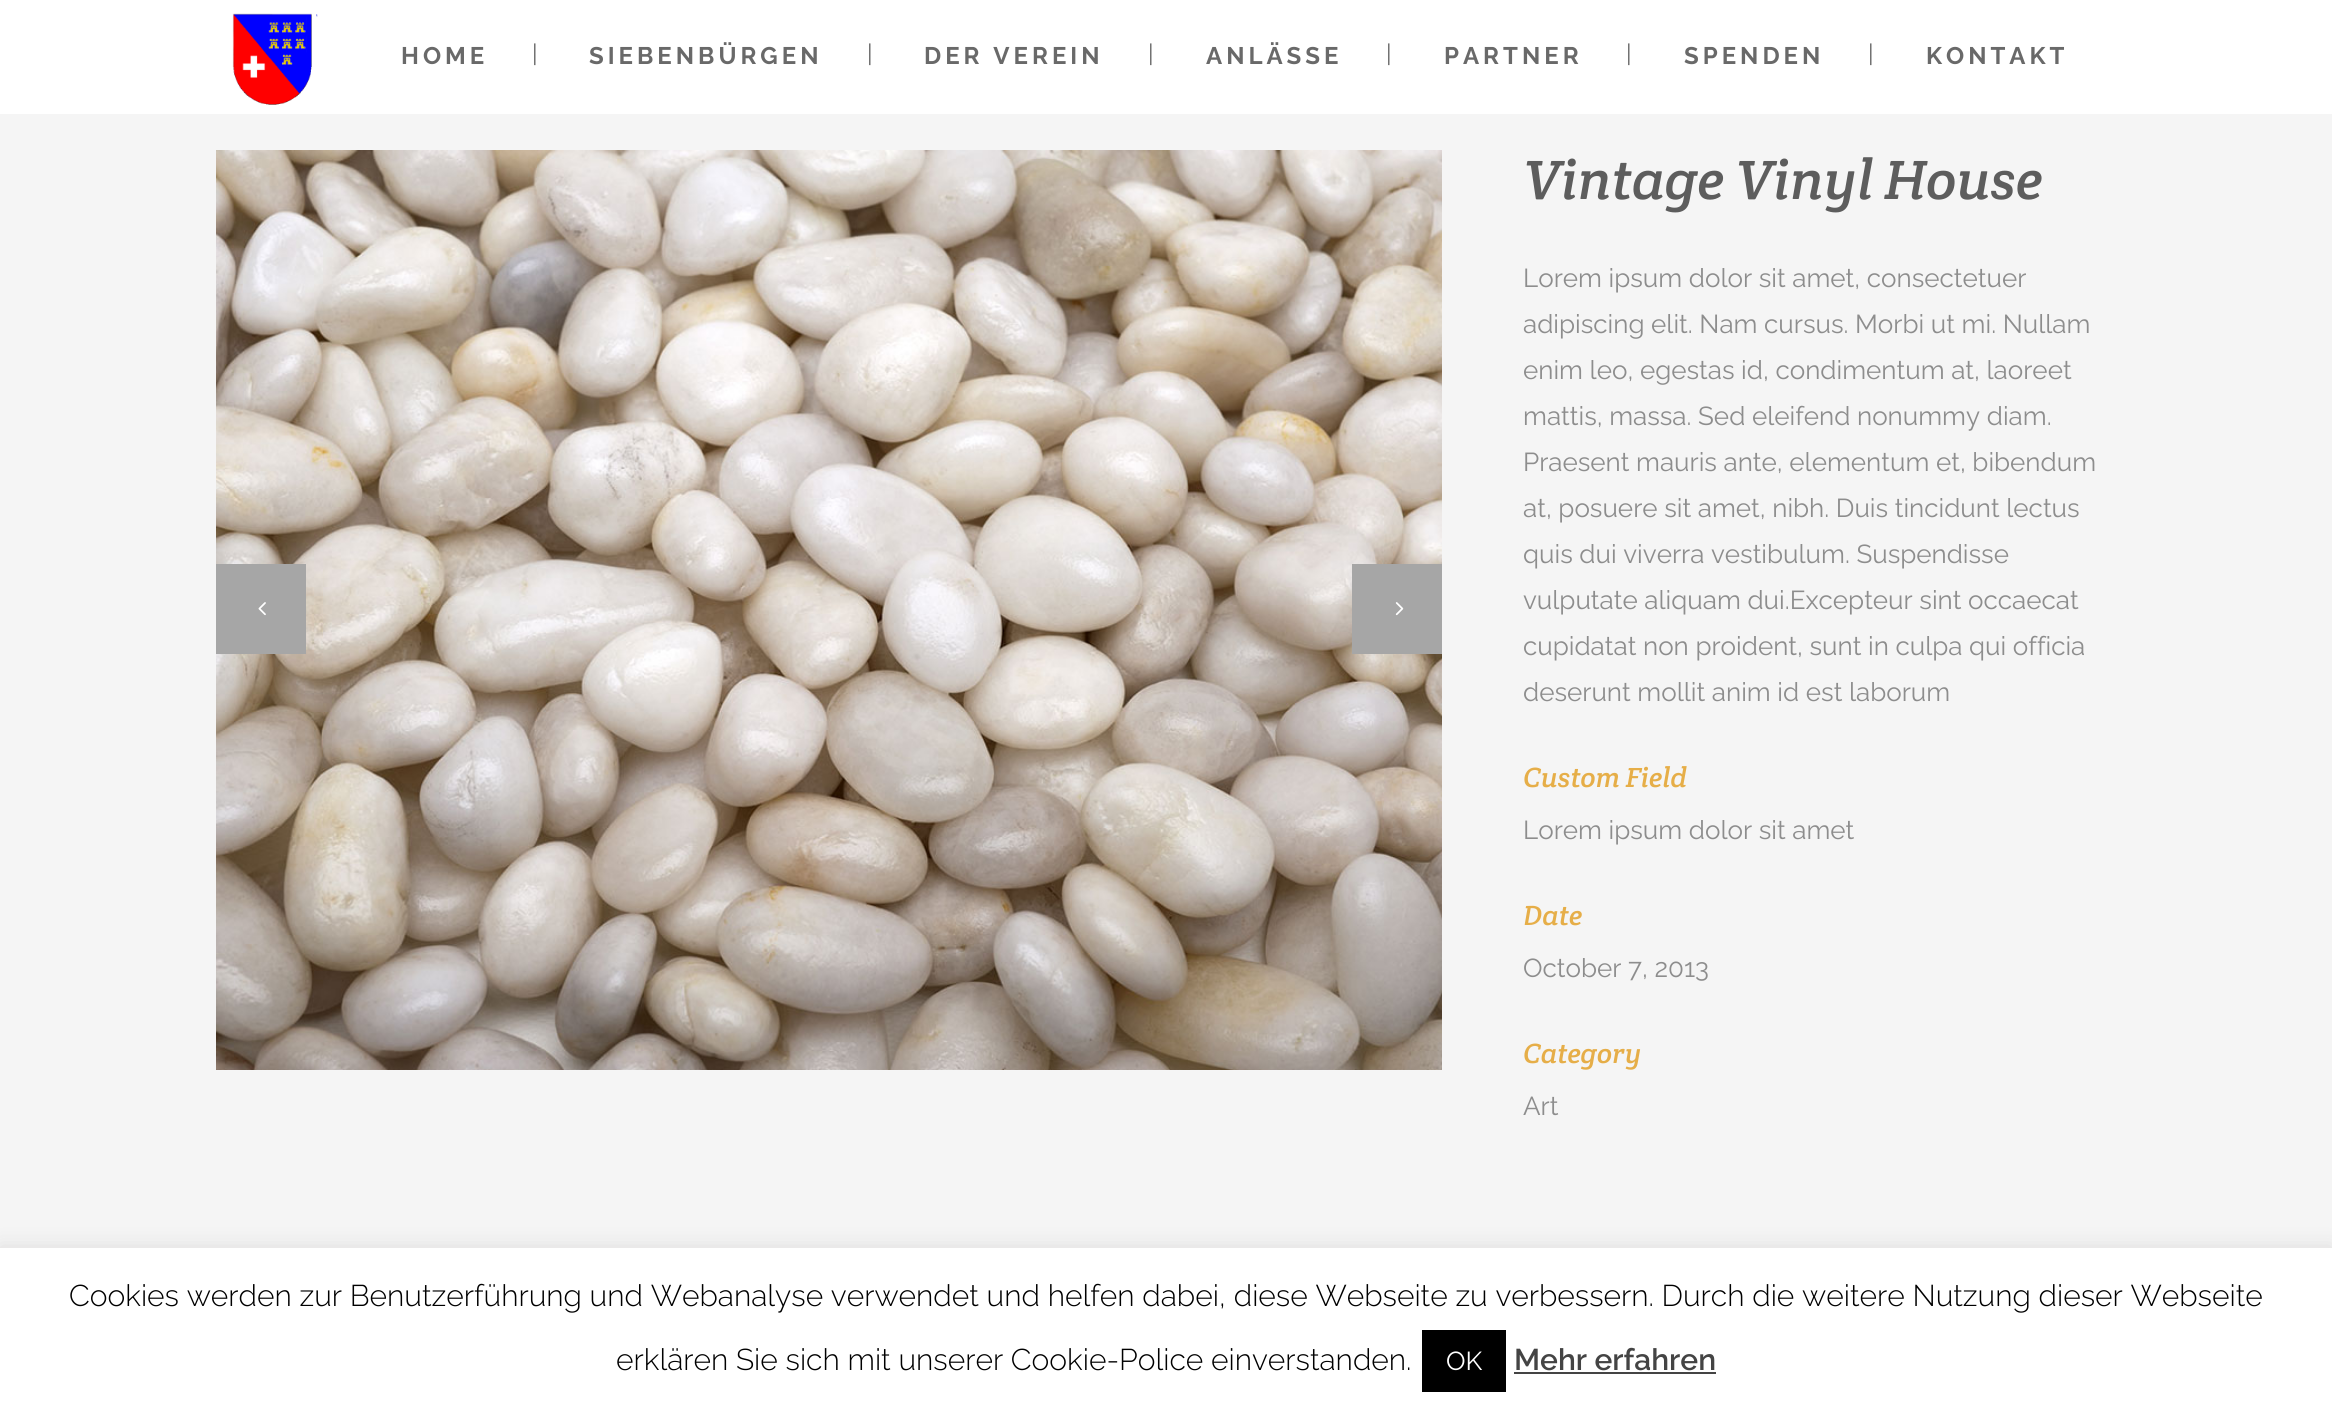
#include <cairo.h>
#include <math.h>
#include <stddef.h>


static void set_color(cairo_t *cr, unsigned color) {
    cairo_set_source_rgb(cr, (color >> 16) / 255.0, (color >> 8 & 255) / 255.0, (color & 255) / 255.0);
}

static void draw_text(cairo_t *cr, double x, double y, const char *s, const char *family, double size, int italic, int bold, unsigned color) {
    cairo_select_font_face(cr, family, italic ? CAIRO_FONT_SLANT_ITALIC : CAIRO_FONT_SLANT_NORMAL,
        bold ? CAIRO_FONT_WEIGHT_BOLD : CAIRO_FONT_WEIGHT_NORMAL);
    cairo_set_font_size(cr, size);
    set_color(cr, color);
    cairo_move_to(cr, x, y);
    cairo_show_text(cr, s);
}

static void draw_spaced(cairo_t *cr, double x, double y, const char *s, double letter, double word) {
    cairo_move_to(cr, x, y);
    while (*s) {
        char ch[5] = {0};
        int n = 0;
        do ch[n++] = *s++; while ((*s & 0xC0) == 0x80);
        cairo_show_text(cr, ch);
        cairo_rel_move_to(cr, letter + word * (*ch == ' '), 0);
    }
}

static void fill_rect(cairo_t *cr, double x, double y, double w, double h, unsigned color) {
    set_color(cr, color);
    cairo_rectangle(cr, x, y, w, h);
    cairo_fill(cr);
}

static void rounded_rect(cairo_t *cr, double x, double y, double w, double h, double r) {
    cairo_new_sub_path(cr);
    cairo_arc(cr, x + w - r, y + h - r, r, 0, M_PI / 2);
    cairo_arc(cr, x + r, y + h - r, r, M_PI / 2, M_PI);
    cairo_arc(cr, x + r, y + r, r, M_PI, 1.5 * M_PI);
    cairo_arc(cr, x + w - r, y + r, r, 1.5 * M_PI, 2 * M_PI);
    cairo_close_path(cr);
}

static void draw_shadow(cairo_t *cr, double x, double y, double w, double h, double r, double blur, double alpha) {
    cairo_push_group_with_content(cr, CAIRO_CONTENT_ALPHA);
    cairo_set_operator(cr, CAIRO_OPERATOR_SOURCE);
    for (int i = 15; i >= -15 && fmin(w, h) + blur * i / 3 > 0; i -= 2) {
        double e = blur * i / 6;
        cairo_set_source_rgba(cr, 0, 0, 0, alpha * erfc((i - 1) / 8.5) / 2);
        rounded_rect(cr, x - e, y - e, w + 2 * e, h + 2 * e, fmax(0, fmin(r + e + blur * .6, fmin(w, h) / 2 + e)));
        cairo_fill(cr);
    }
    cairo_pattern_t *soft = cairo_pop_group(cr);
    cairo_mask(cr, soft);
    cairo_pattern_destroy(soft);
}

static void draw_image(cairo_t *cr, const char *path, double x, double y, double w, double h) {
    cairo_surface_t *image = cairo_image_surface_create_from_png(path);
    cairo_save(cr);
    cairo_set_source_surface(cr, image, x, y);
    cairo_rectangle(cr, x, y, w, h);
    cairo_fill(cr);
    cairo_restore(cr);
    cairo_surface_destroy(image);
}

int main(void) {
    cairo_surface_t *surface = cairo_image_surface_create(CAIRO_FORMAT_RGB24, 2332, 1415);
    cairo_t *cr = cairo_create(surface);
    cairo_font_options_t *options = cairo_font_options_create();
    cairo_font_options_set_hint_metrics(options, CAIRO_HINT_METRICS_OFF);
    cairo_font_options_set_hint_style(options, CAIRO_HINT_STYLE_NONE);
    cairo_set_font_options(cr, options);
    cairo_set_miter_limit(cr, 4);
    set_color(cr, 0xF5F5F5);
    cairo_paint(cr);
    fill_rect(cr, 0, 0, 2332, 114, 0xFFFFFF);
    draw_image(cr, "assets/img1.png", 232, 13, 86, 92);
    cairo_select_font_face(cr, "Raleway", CAIRO_FONT_SLANT_NORMAL, CAIRO_FONT_WEIGHT_BOLD);
    cairo_set_font_size(cr, 24);
    set_color(cr, 0x696969);
    draw_spaced(cr, 401, 64, "HOME", 4, 0);
    draw_text(cr, 532, 62, "|", "Raleway", 24, 0, 0, 0x696969);
    cairo_select_font_face(cr, "Raleway", CAIRO_FONT_SLANT_NORMAL, CAIRO_FONT_WEIGHT_BOLD);
    draw_spaced(cr, 589, 64, "SIEBENBÜRGEN", 4, 0);
    draw_text(cr, 867, 62, "|", "Raleway", 24, 0, 0, 0x696969);
    cairo_select_font_face(cr, "Raleway", CAIRO_FONT_SLANT_NORMAL, CAIRO_FONT_WEIGHT_BOLD);
    draw_spaced(cr, 924, 64, "DER VEREIN", 4, 0);
    draw_text(cr, 1148, 62, "|", "Raleway", 24, 0, 0, 0x696969);
    cairo_select_font_face(cr, "Raleway", CAIRO_FONT_SLANT_NORMAL, CAIRO_FONT_WEIGHT_BOLD);
    draw_spaced(cr, 1206, 64, "ANLÄSSE", 4, 0);
    draw_text(cr, 1386, 62, "|", "Raleway", 24, 0, 0, 0x696969);
    cairo_select_font_face(cr, "Raleway", CAIRO_FONT_SLANT_NORMAL, CAIRO_FONT_WEIGHT_BOLD);
    draw_spaced(cr, 1444, 64, "PARTNER", 4, 0);
    draw_text(cr, 1626, 62, "|", "Raleway", 24, 0, 0, 0x696969);
    cairo_select_font_face(cr, "Raleway", CAIRO_FONT_SLANT_NORMAL, CAIRO_FONT_WEIGHT_BOLD);
    draw_spaced(cr, 1684, 64, "SPENDEN", 4, 0);
    draw_text(cr, 1868, 62, "|", "Raleway", 24, 0, 0, 0x696969);
    cairo_select_font_face(cr, "Raleway", CAIRO_FONT_SLANT_NORMAL, CAIRO_FONT_WEIGHT_BOLD);
    draw_spaced(cr, 1926, 64, "KONTAKT", 4, 0);
    draw_image(cr, "assets/img2.png", 216, 150, 1226, 920);
    fill_rect(cr, 216, 564, 90, 90, 0xA6A6A6);
    draw_image(cr, "assets/img3.png", 258, 602, 8, 14);
    fill_rect(cr, 1352, 564, 90, 90, 0xA6A6A6);
    draw_image(cr, "assets/img4.png", 1395, 602, 9, 14);
    draw_text(cr, 1523, 199, "Vintage Vinyl House", "Crete Round", 56, 1, 0, 0x5D5D5D);
    draw_text(cr, 1523, 287, "Lorem ipsum dolor sit amet, consectetuer", "Raleway", 26, 0, 0, 0x8D8D8D);
    draw_text(cr, 1523, 333, "adipiscing elit. Nam cursus. Morbi ut mi. Nullam", "Raleway", 26, 0, 0, 0x8D8D8D);
    draw_text(cr, 1523, 379, "enim leo, egestas id, condimentum at, laoreet", "Raleway", 26, 0, 0, 0x8D8D8D);
    draw_text(cr, 1523, 425, "mattis, massa. Sed eleifend nonummy diam.", "Raleway", 26, 0, 0, 0x8D8D8D);
    draw_text(cr, 1523, 471, "Praesent mauris ante, elementum et, bibendum", "Raleway", 26, 0, 0, 0x8D8D8D);
    draw_text(cr, 1523, 517, "at, posuere sit amet, nibh. Duis tincidunt lectus", "Raleway", 26, 0, 0, 0x8D8D8D);
    draw_text(cr, 1523, 563, "quis dui viverra vestibulum. Suspendisse", "Raleway", 26, 0, 0, 0x8D8D8D);
    draw_text(cr, 1523, 609, "vulputate aliquam dui.Excepteur sint occaecat", "Raleway", 26, 0, 0, 0x8D8D8D);
    draw_text(cr, 1523, 655, "cupidatat non proident, sunt in culpa qui officia", "Raleway", 26, 0, 0, 0x8D8D8D);
    draw_text(cr, 1523, 701, "deserunt mollit anim id est laborum", "Raleway", 26, 0, 0, 0x8D8D8D);
    draw_text(cr, 1523, 787, "Custom Field", "Crete Round", 28, 1, 0, 0xE6AE48);
    draw_text(cr, 1523, 839, "Lorem ipsum dolor sit amet", "Raleway", 26, 0, 0, 0x8D8D8D);
    draw_text(cr, 1523, 925, "Date", "Crete Round", 28, 1, 0, 0xE6AE48);
    draw_text(cr, 1523, 977, "October 7, 2013", "Raleway", 26, 0, 0, 0x8D8D8D);
    draw_text(cr, 1523, 1063, "Category", "Crete Round", 28, 1, 0, 0xE6AE48);
    draw_text(cr, 1523, 1115, "Art", "Raleway", 26, 0, 0, 0x8D8D8D);
    set_color(cr, 0xACABAB);
    draw_shadow(cr, 0, 1246, 2332, 168, 0, 10, 0.3);
    fill_rect(cr, 0, 1248, 2332, 167, 0xFFFFFF);
    draw_text(cr, 69, 1306, "Cookies werden zur Benutzerführung und Webanalyse verwendet und helfen dabei, diese Webseite zu verbessern. Durch die weitere Nutzung dieser Webseite", "Raleway Light", 30, 0, 0, 0x000000);
    draw_text(cr, 616, 1370, "erklären Sie sich mit unserer Cookie-Police einverstanden.", "Raleway Light", 30, 0, 0, 0x000000);
    fill_rect(cr, 1422, 1330, 84, 62, 0x000000);
    draw_text(cr, 1446, 1370, "OK", "Raleway", 26, 0, 0, 0xFFFFFF);
    draw_text(cr, 1514, 1370, "Mehr erfahren", "Raleway SemiBold", 30, 0, 0, 0x444444);
    fill_rect(cr, 1514, 1372, 202, 2, 0x444444);
    cairo_surface_write_to_png(surface, "output.png");
    cairo_font_options_destroy(options);
    cairo_destroy(cr);
    cairo_surface_destroy(surface);
    return 0;
}
